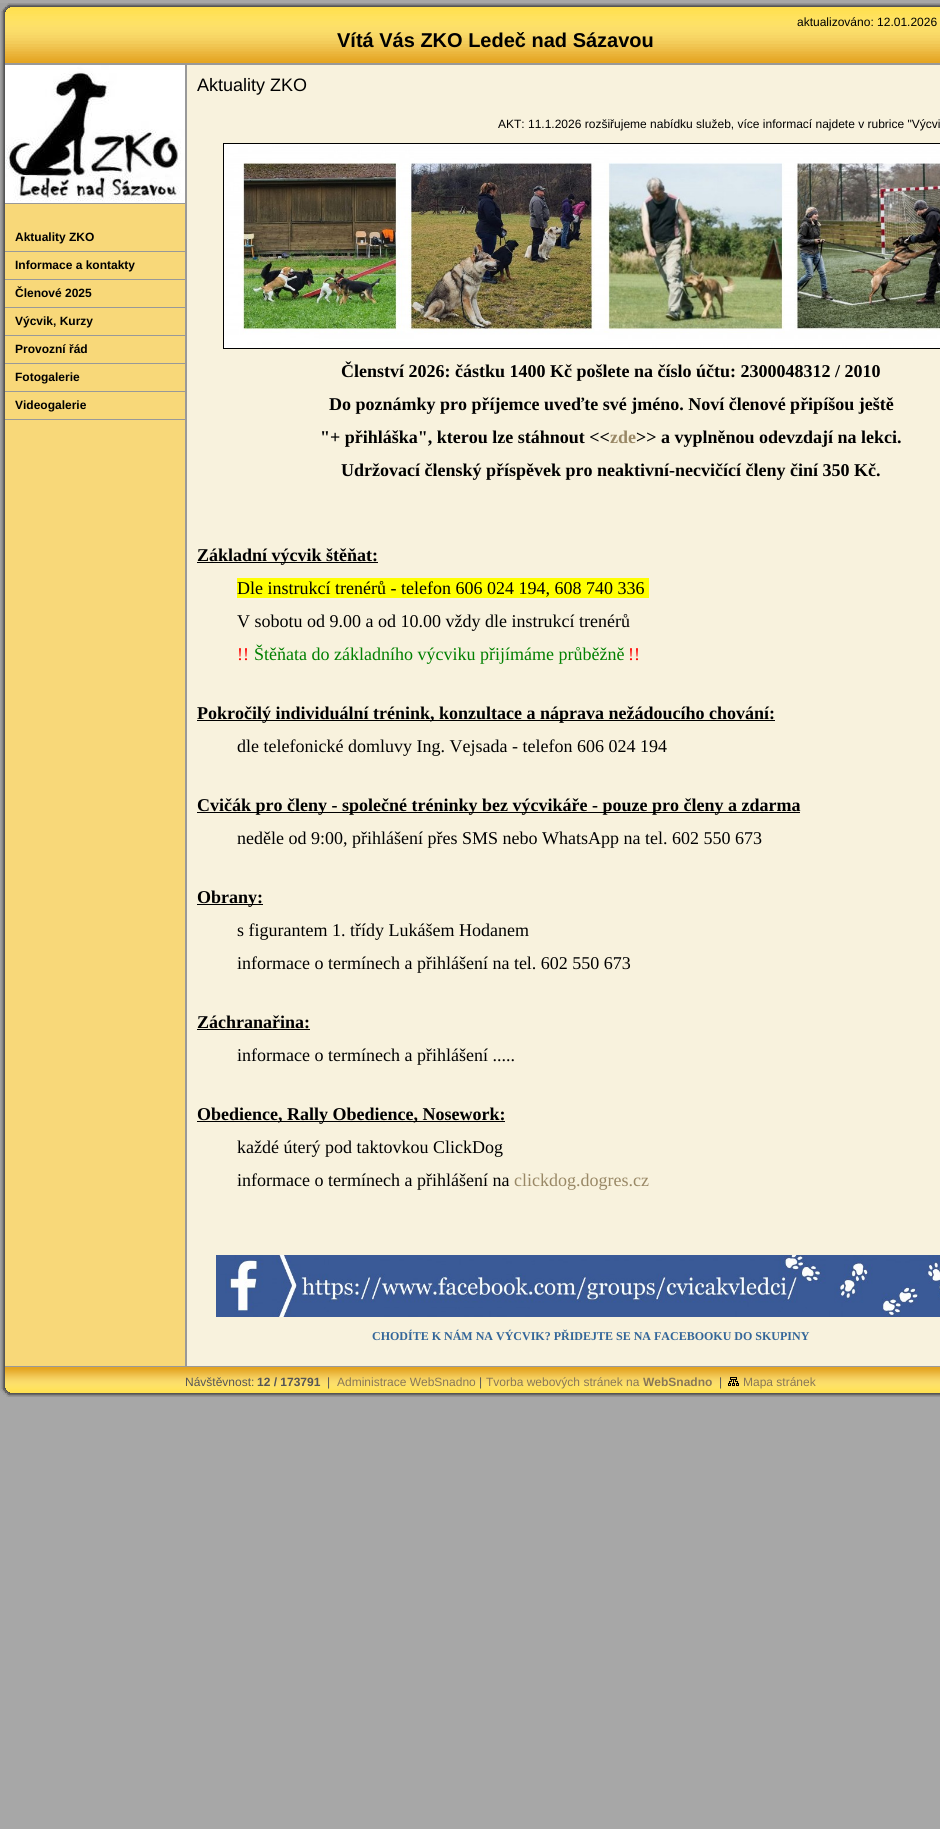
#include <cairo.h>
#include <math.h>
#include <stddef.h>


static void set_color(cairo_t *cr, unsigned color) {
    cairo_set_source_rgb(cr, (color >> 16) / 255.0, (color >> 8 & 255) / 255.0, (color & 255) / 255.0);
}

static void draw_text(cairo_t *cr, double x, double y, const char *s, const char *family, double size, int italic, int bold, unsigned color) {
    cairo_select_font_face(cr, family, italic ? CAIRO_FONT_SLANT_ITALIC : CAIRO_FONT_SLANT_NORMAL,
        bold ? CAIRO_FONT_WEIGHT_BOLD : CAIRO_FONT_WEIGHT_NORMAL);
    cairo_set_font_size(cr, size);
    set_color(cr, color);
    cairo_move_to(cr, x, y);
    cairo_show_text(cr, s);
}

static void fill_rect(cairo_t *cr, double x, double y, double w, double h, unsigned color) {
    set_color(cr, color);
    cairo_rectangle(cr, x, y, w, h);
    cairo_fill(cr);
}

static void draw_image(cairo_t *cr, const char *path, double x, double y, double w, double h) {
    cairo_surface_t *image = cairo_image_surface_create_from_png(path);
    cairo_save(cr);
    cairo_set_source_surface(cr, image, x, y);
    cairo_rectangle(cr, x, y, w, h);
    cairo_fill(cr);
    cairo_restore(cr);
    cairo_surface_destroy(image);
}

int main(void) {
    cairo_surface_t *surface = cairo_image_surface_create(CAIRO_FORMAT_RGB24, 940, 1829);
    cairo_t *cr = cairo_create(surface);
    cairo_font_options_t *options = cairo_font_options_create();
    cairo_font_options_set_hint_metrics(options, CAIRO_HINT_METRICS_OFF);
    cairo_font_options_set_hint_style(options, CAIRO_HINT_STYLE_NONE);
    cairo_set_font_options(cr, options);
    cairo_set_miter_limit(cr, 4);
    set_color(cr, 0xA7A7A7);
    cairo_paint(cr);
    draw_image(cr, "assets/img1.png", 0, 3, 940, 60);
    draw_text(cr, 797, 26, "aktualizováno: 12.01.2026", "Liberation Sans", 12, 0, 0, 0x000000);
    draw_text(cr, 337, 47, "Vítá Vás ZKO Ledeč nad Sázavou", "Liberation Sans", 20, 0, 1, 0x000000);
    draw_image(cr, "assets/img2.png", 0, 63, 5, 1304);
    fill_rect(cr, 5, 204, 180, 1162, 0xF8D879);
    fill_rect(cr, 5, 63, 935, 2, 0x999999);
    fill_rect(cr, 185, 63, 2, 1304, 0x999999);
    fill_rect(cr, 5, 1366, 935, 1, 0x999999);
    draw_image(cr, "assets/img3.png", 5, 65, 180, 138);
    fill_rect(cr, 5, 203, 180, 1, 0x999999);
    fill_rect(cr, 5, 251, 180, 1, 0x999999);
    draw_text(cr, 15, 241, "Aktuality ZKO", "Liberation Sans", 12, 0, 1, 0x000000);
    fill_rect(cr, 5, 279, 180, 1, 0x999999);
    draw_text(cr, 15, 269, "Informace a kontakty", "Liberation Sans", 12, 0, 1, 0x000000);
    fill_rect(cr, 5, 307, 180, 1, 0x999999);
    draw_text(cr, 15, 297, "Členové 2025", "Liberation Sans", 12, 0, 1, 0x000000);
    fill_rect(cr, 5, 335, 180, 1, 0x999999);
    draw_text(cr, 15, 325, "Výcvik‚ Kurzy", "Liberation Sans", 12, 0, 1, 0x000000);
    fill_rect(cr, 5, 363, 180, 1, 0x999999);
    draw_text(cr, 15, 353, "Provozní řád", "Liberation Sans", 12, 0, 1, 0x000000);
    fill_rect(cr, 5, 391, 180, 1, 0x999999);
    draw_text(cr, 15, 381, "Fotogalerie", "Liberation Sans", 12, 0, 1, 0x000000);
    fill_rect(cr, 5, 419, 180, 1, 0x999999);
    draw_text(cr, 15, 409, "Videogalerie", "Liberation Sans", 12, 0, 1, 0x000000);
    fill_rect(cr, 187, 65, 753, 1301, 0xF8F2DD);
    draw_text(cr, 197, 91, "Aktuality ZKO", "Liberation Sans", 18, 0, 0, 0x000000);
    draw_text(cr, 498, 128, "AKT: 11.1.2026 rozšiřujeme nabídku služeb, více informací najdete v rubrice \"Výcvi", "Liberation Sans", 12, 0, 0, 0x000000);
    cairo_rectangle(cr, 223.5, 143.5, 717, 205);
    cairo_set_line_width(cr, 1);
    cairo_stroke(cr);
    draw_image(cr, "assets/img4.png", 224, 144, 716, 204);
    draw_text(cr, 341, 377, "Členství 2026: částku 1400 Kč pošlete na číslo účtu: 2300048312 / 2010", "Liberation Serif", 18, 0, 1, 0x000000);
    draw_text(cr, 329, 410, "Do poznámky pro příjemce uveďte své jméno. Noví členové připíšou ještě", "Liberation Serif", 18, 0, 1, 0x000000);
    draw_text(cr, 320, 443, "\"+ přihláška\", kterou lze stáhnout <<", "Liberation Serif", 18, 0, 1, 0x000000);
    draw_text(cr, 610, 443, "zde", "Liberation Serif", 18, 0, 1, 0x998866);
    draw_text(cr, 636, 443, ">> a vyplněnou odevzdají na lekci.", "Liberation Serif", 18, 0, 1, 0x000000);
    draw_text(cr, 341, 476, "Udržovací členský příspěvek pro neaktivní-necvičící členy činí 350 Kč.", "Liberation Serif", 18, 0, 1, 0x000000);
    fill_rect(cr, 197, 562, 181, 1, 0x000000);
    draw_text(cr, 197, 561, "Základní výcvik štěňat:", "Liberation Serif", 18, 0, 1, 0x000000);
    fill_rect(cr, 237, 578, 412, 20, 0xFFFF00);
    draw_text(cr, 237, 594, "Dle instrukcí trenérů - telefon 606 024 194, 608 740 336", "Liberation Serif", 18, 0, 0, 0x000000);
    draw_text(cr, 237, 627, "V sobotu od 9.00 a od 10.00 vždy dle instrukcí trenérů", "Liberation Serif", 18, 0, 0, 0x000000);
    draw_text(cr, 237, 660, "!!", "Liberation Serif", 18, 0, 0, 0xFF0000);
    draw_text(cr, 254, 660, "Štěňata do základního výcviku přijímáme průběžně", "Liberation Serif", 18, 0, 0, 0x008000);
    draw_text(cr, 628, 660, "!!", "Liberation Serif", 18, 0, 0, 0xFF0000);
    fill_rect(cr, 197, 720, 578, 1, 0x000000);
    draw_text(cr, 197, 719, "Pokročilý individuální trénink, konzultace a náprava nežádoucího chování:", "Liberation Serif", 18, 0, 1, 0x000000);
    draw_text(cr, 237, 752, "dle telefonické domluvy Ing. Vejsada - telefon 606 024 194", "Liberation Serif", 18, 0, 0, 0x000000);
    fill_rect(cr, 197, 812, 603, 1, 0x000000);
    draw_text(cr, 197, 811, "Cvičák pro členy - společné tréninky bez výcvikáře - pouze pro členy a zdarma", "Liberation Serif", 18, 0, 1, 0x000000);
    draw_text(cr, 237, 844, "neděle od 9:00, přihlášení přes SMS nebo WhatsApp na tel. 602 550 673", "Liberation Serif", 18, 0, 0, 0x000000);
    fill_rect(cr, 197, 904, 66, 1, 0x000000);
    draw_text(cr, 197, 903, "Obrany:", "Liberation Serif", 18, 0, 1, 0x000000);
    draw_text(cr, 237, 936, "s figurantem 1. třídy Lukášem Hodanem", "Liberation Serif", 18, 0, 0, 0x000000);
    draw_text(cr, 237, 969, "informace o termínech a přihlášení na tel. 602 550 673", "Liberation Serif", 18, 0, 0, 0x000000);
    draw_text(cr, 197, 1028, "Záchranařina:", "Liberation Serif", 18, 0, 1, 0x000000);
    fill_rect(cr, 197, 1029, 113, 1, 0x000000);
    draw_text(cr, 237, 1061, "informace o termínech a přihlášení .....", "Liberation Serif", 18, 0, 0, 0x000000);
    fill_rect(cr, 197, 1121, 308, 1, 0x000000);
    draw_text(cr, 197, 1120, "Obedience, Rally Obedience, Nosework:", "Liberation Serif", 18, 0, 1, 0x000000);
    draw_text(cr, 237, 1153, "každé úterý pod taktovkou ClickDog", "Liberation Serif", 18, 0, 0, 0x000000);
    draw_text(cr, 237, 1186, "informace o termínech a přihlášení na", "Liberation Serif", 18, 0, 0, 0x000000);
    draw_text(cr, 514, 1186, "clickdog.dogres.cz", "Liberation Serif", 18, 0, 0, 0x998866);
    draw_image(cr, "assets/img5.png", 216, 1255, 724, 62);
    draw_text(cr, 372, 1340, "CHODÍTE K NÁM NA VÝCVIK? PŘIDEJTE SE NA FACEBOOKU DO SKUPINY", "Liberation Serif", 12, 0, 1, 0x336699);
    draw_image(cr, "assets/img6.png", 0, 1367, 940, 30);
    draw_text(cr, 185, 1386, "Návštěvnost:", "Liberation Sans", 12, 0, 0, 0x555555);
    draw_text(cr, 257, 1386, "12 / 173791", "Liberation Sans", 12, 0, 1, 0x555555);
    draw_text(cr, 327, 1386, "|", "Liberation Sans", 12, 0, 0, 0x555555);
    draw_text(cr, 337, 1386, "Administrace WebSnadno", "Liberation Sans", 12, 0, 0, 0x887755);
    draw_text(cr, 479, 1386, "|", "Liberation Sans", 12, 0, 0, 0x555555);
    draw_text(cr, 486, 1386, "Tvorba webových stránek na", "Liberation Sans", 12, 0, 0, 0x887755);
    draw_text(cr, 643, 1386, "WebSnadno", "Liberation Sans", 12, 0, 1, 0x887755);
    draw_text(cr, 719, 1386, "|", "Liberation Sans", 12, 0, 0, 0x555555);
    draw_image(cr, "assets/img7.png", 728, 1377, 11, 9);
    draw_text(cr, 743, 1386, "Mapa stránek", "Liberation Sans", 12, 0, 0, 0x887755);
    cairo_surface_write_to_png(surface, "output.png");
    cairo_font_options_destroy(options);
    cairo_destroy(cr);
    cairo_surface_destroy(surface);
    return 0;
}
